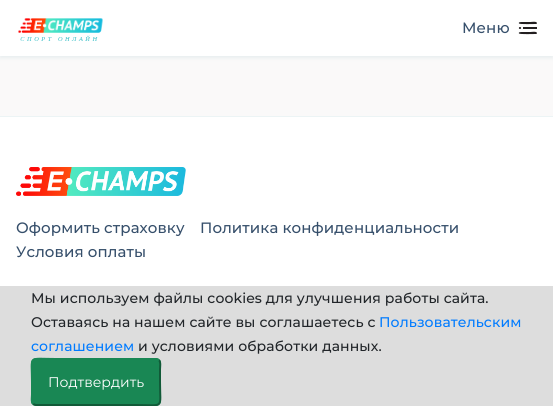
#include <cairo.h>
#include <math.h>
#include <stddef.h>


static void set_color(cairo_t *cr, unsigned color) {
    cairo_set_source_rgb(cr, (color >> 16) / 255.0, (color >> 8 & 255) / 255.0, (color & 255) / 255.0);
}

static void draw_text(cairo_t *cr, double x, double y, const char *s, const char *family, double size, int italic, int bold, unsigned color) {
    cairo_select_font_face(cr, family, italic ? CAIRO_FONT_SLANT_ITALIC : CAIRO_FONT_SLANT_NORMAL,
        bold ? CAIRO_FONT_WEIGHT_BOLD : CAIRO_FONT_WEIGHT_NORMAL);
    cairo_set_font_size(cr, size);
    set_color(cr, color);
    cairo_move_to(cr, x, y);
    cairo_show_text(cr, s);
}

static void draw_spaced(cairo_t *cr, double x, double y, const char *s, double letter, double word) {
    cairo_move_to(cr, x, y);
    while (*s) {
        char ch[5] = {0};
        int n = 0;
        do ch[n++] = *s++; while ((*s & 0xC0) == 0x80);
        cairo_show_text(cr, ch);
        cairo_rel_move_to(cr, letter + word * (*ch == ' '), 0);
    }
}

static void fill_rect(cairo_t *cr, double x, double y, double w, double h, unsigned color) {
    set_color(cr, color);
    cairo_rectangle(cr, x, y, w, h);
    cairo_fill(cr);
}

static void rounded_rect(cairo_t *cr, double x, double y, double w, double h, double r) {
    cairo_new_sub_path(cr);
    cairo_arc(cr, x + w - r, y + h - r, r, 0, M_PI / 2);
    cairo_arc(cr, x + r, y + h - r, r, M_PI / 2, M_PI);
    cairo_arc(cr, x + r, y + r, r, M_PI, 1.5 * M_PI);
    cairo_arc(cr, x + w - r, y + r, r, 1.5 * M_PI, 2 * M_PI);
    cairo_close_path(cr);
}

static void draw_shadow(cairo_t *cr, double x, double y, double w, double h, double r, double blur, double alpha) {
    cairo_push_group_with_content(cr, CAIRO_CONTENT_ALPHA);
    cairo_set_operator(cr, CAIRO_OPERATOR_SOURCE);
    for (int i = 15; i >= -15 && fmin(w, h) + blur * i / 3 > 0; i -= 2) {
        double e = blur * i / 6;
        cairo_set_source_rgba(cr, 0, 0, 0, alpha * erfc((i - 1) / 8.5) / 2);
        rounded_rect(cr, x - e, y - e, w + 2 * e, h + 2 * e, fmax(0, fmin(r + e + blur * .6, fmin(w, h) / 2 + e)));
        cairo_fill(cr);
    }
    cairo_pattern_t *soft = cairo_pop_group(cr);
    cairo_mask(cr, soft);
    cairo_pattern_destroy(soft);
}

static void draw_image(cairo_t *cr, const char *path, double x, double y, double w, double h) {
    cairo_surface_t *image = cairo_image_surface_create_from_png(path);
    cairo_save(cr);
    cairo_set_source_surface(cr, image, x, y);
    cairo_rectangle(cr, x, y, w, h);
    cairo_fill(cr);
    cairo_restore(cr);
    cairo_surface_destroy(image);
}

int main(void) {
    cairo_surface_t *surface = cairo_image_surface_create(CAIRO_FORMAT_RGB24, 553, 406);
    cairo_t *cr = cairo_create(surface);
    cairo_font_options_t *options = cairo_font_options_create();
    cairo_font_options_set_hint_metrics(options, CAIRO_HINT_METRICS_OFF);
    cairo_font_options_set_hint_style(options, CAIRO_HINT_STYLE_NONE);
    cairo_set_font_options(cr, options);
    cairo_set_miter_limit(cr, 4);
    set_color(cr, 0xFAF9F9);
    cairo_paint(cr);
    set_color(cr, 0x458E9D);
    draw_shadow(cr, 0, 2, 553, 56, 0, 2, 0.1);
    fill_rect(cr, 0, 0, 553, 56, 0xFFFFFF);
    draw_image(cr, "assets/img1.png", 18, 18, 85, 23);
    cairo_select_font_face(cr, "Montserrat Medium", CAIRO_FONT_SLANT_NORMAL, CAIRO_FONT_WEIGHT_NORMAL);
    cairo_set_font_size(cr, 15);
    set_color(cr, 0x364F6B);
    draw_spaced(cr, 462, 33, "Меню", 0.1, 0);
    fill_rect(cr, 523, 27, 14, 2, 0x231F20);
    cairo_new_path(cr);
    cairo_move_to(cr, 536, 34);
    cairo_curve_to(cr, 534, 34, 520, 34.5, 519, 33.5);
    cairo_curve_to(cr, 518, 32, 521, 32, 522.5, 32);
    cairo_line_to(cr, 530.5, 32);
    cairo_curve_to(cr, 531.5, 32, 536.5, 31, 537, 33);
    cairo_curve_to(cr, 537, 33.5, 536.5, 34, 536, 34);
    cairo_close_path(cr);
    cairo_move_to(cr, 520, 29);
    cairo_curve_to(cr, 518.5, 29, 518.5, 27, 520, 27);
    cairo_curve_to(cr, 521.5, 27, 521.5, 29, 520, 29);
    cairo_close_path(cr);
    cairo_move_to(cr, 536, 24);
    cairo_curve_to(cr, 534, 24, 520, 24.5, 519, 23.5);
    cairo_curve_to(cr, 518, 22, 521, 22, 522.5, 22);
    cairo_line_to(cr, 530.5, 22);
    cairo_curve_to(cr, 531.5, 22, 536.5, 21, 537, 23);
    cairo_curve_to(cr, 537, 23.5, 536.5, 24, 536, 24);
    cairo_close_path(cr);
    cairo_fill(cr);
    fill_rect(cr, 0, 117, 553, 169, 0xFFFFFF);
    fill_rect(cr, 0, 116, 553, 1, 0xECF4F5);
    draw_image(cr, "assets/img2.png", 16, 167, 170, 29);
    set_color(cr, 0x364F6B);
    draw_spaced(cr, 16, 233, "Оформить страховку", 0.1, 0);
    draw_spaced(cr, 200, 233, "Политика конфиденциальности", 0.1, 0);
    draw_spaced(cr, 16, 257, "Условия оплаты", 0.1, 0);
    fill_rect(cr, 0, 286, 553, 120, 0xDDDDDD);
    cairo_set_font_size(cr, 14);
    set_color(cr, 0x212529);
    draw_spaced(cr, 31, 303, "Мы используем файлы cookies для улучшения работы сайта.", 0.1, 0);
    draw_spaced(cr, 31, 327, "Оставаясь на нашем сайте вы соглашаетесь с", 0.1, 0);
    set_color(cr, 0x007BFF);
    draw_spaced(cr, 379, 327, "Пользовательским", 0.1, 0);
    draw_spaced(cr, 31, 351, "соглашением", 0.1, 0);
    set_color(cr, 0x212529);
    draw_spaced(cr, 138, 351, "и условиями обработки данных.", 0.1, 0);
    set_color(cr, 0x198754);
    rounded_rect(cr, 31, 358, 130, 48, 5);
    cairo_fill(cr);
    cairo_new_path(cr);
    cairo_move_to(cr, 159, 360);
    cairo_curve_to(cr, 161, 362.5, 160, 367, 160, 369.5);
    cairo_line_to(cr, 160, 382);
    cairo_curve_to(cr, 160, 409.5, 165, 405, 136, 405);
    cairo_line_to(cr, 36, 405);
    cairo_line_to(cr, 33, 404);
    set_color(cr, 0x115A38);
    cairo_stroke(cr);
    cairo_new_path(cr);
    cairo_move_to(cr, 33, 404);
    cairo_curve_to(cr, 31, 401.5, 32, 397, 32, 394.5);
    cairo_line_to(cr, 32, 382);
    cairo_curve_to(cr, 32, 354.5, 27, 359, 56, 359);
    cairo_line_to(cr, 156, 359);
    cairo_line_to(cr, 159, 360);
    set_color(cr, 0x198754);
    cairo_stroke(cr);
    draw_text(cr, 48, 387, "Подтвердить", "Montserrat", 14, 0, 0, 0xFFFFFF);
    cairo_surface_write_to_png(surface, "output.png");
    cairo_font_options_destroy(options);
    cairo_destroy(cr);
    cairo_surface_destroy(surface);
    return 0;
}
